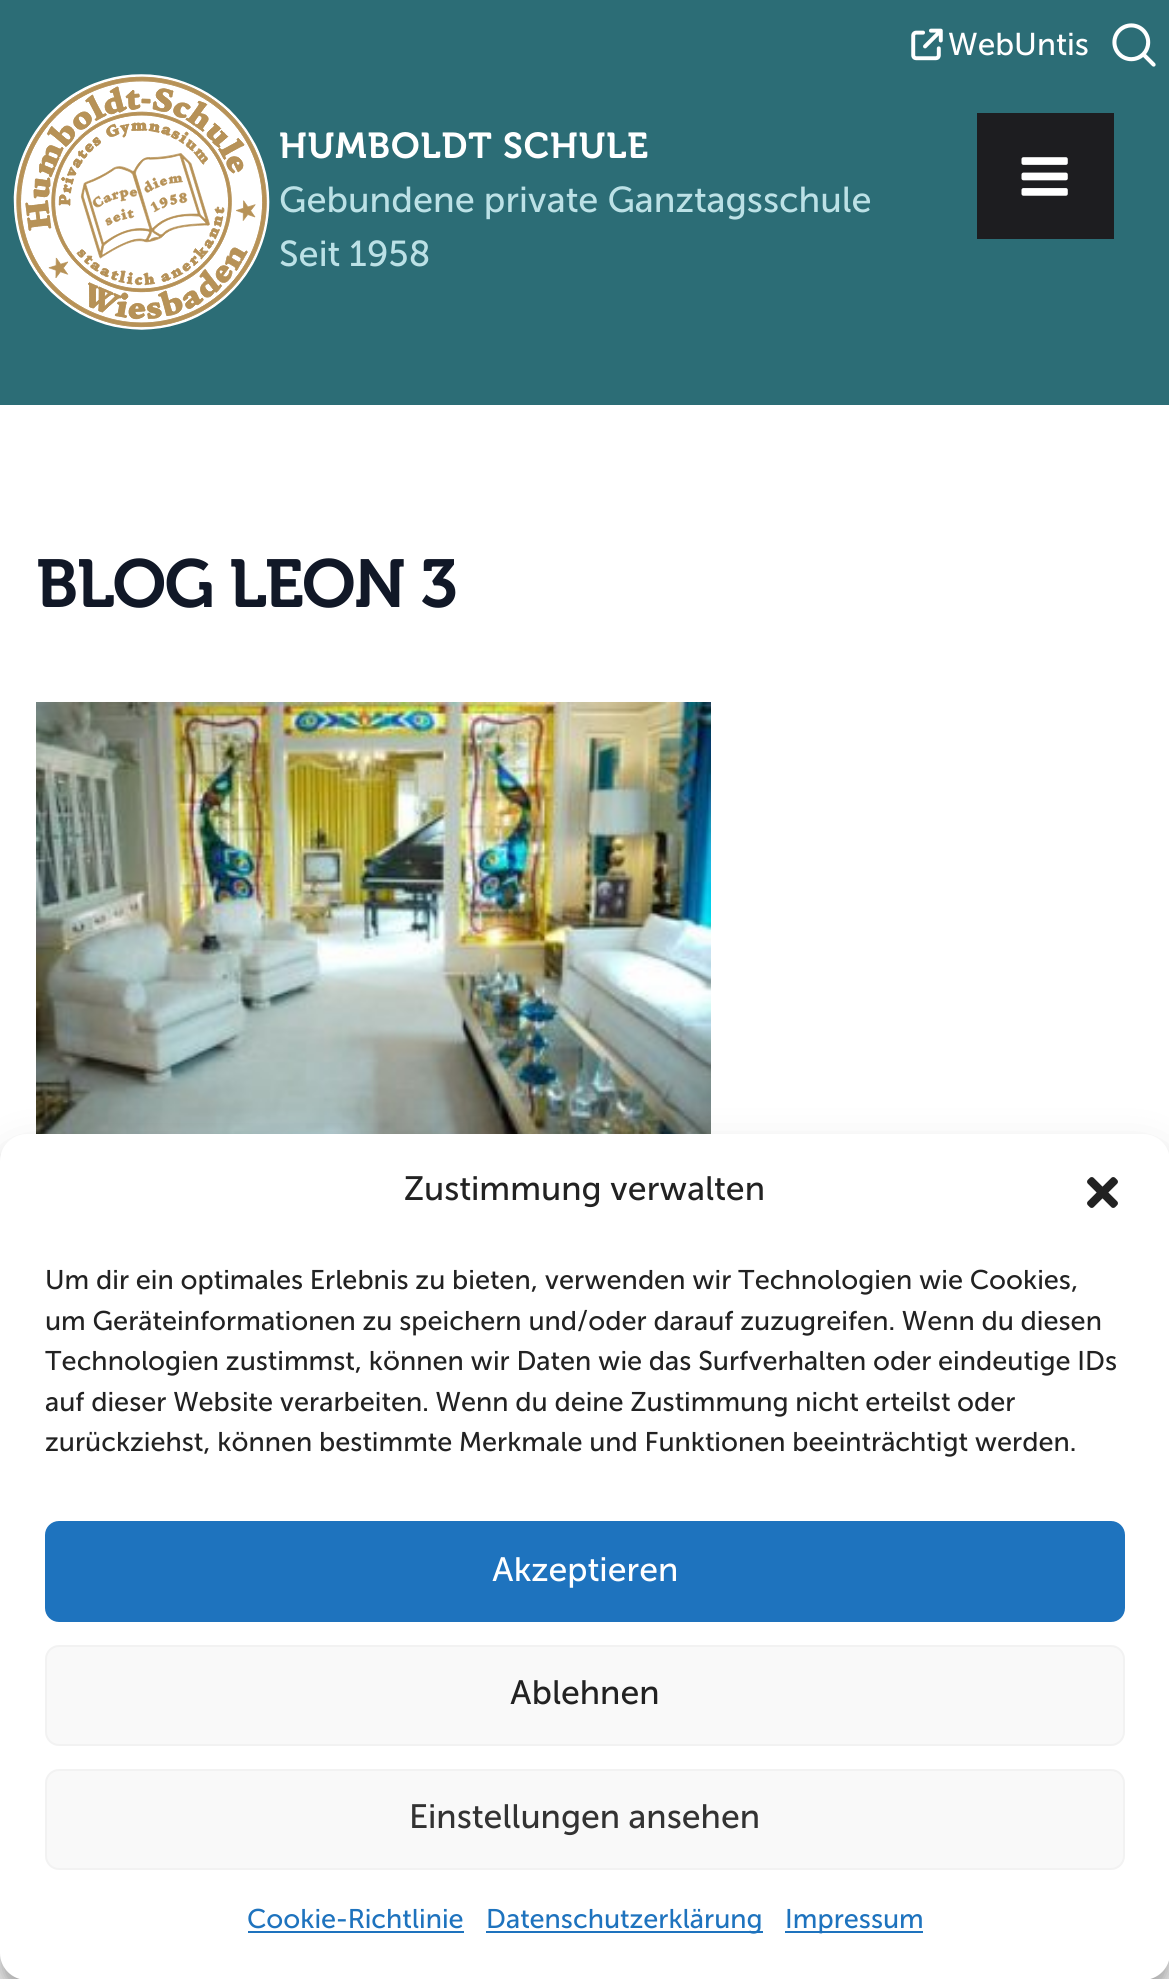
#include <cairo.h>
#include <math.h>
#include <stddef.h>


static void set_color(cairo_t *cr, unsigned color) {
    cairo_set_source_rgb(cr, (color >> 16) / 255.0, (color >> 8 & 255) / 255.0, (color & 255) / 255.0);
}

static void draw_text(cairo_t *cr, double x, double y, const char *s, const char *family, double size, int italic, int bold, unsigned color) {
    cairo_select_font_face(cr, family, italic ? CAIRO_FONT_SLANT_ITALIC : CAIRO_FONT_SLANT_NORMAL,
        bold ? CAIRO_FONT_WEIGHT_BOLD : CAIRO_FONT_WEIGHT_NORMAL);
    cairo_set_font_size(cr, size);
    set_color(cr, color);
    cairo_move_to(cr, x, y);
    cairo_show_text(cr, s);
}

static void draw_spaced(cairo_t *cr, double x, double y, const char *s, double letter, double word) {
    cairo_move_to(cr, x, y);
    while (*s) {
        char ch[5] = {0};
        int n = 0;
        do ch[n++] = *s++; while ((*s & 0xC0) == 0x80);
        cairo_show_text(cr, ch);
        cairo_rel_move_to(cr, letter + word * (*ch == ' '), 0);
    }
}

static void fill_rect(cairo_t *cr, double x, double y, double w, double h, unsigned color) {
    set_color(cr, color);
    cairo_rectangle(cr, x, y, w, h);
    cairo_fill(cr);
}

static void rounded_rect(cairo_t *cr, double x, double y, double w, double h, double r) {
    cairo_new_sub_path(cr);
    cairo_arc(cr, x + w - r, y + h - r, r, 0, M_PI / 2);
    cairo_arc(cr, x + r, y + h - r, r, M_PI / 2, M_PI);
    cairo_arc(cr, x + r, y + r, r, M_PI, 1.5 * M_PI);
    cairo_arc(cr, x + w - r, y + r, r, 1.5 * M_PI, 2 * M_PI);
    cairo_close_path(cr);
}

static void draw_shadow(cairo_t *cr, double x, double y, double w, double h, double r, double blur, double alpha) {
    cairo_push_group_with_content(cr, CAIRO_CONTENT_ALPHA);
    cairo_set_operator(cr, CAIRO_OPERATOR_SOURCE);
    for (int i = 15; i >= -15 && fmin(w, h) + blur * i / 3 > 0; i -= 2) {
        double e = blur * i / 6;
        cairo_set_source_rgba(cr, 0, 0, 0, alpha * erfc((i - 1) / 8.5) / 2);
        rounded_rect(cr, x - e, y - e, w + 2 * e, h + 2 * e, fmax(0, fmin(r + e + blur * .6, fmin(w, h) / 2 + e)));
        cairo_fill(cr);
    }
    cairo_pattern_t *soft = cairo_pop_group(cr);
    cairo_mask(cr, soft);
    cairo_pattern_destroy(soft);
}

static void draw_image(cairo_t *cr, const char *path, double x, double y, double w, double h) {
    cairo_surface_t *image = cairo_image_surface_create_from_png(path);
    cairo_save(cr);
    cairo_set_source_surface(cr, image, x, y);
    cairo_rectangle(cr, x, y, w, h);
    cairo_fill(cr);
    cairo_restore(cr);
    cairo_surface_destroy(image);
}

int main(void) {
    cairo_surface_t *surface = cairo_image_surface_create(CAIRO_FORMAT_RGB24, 1169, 1979);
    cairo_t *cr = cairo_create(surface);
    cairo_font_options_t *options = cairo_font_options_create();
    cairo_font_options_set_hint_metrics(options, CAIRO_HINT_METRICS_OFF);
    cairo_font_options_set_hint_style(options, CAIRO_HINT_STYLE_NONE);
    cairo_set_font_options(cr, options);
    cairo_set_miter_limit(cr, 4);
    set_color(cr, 0xFFFFFF);
    cairo_paint(cr);
    fill_rect(cr, 0, 0, 1169, 405, 0x2C6D76);
    draw_image(cr, "assets/img1.png", 911, 28, 32, 33);
    draw_text(cr, 948, 55, "WebUntis", "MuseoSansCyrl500", 31.5, 0, 0, 0xFFFFFF);
    draw_image(cr, "assets/img2.png", 1112, 23, 44, 44);
    draw_image(cr, "assets/img3.png", 13, 74, 257, 256);
    cairo_select_font_face(cr, "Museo", CAIRO_FONT_SLANT_NORMAL, CAIRO_FONT_WEIGHT_BOLD);
    cairo_set_font_size(cr, 36);
    draw_spaced(cr, 279, 158, "HUMBOLDT SCHULE", 0.9, 0);
    draw_text(cr, 279, 212, "Gebundene private Ganztagsschule", "MuseoSansCyrl500", 36, 0, 0, 0xBCE1E6);
    draw_text(cr, 279, 266, "Seit 1958", "MuseoSansCyrl500", 36, 0, 0, 0xBCE1E6);
    fill_rect(cr, 977, 113, 137, 126, 0x1D1D20);
    draw_image(cr, "assets/img4.png", 1021, 157, 47, 39);
    cairo_select_font_face(cr, "Museo", CAIRO_FONT_SLANT_NORMAL, CAIRO_FONT_WEIGHT_BOLD);
    cairo_set_font_size(cr, 67.5);
    set_color(cr, 0x111827);
    draw_spaced(cr, 36, 607, "BLOG LEON 3", -1.75, 0);
    draw_image(cr, "assets/img5.png", 36, 702, 675, 432);
    set_color(cr, 0x000000);
    draw_shadow(cr, 0, 1148, 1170, 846, 27, 7, 0.23);
    draw_shadow(cr, 0, 1157, 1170, 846, 27, 22.5, 0.19);
    set_color(cr, 0xFFFFFF);
    rounded_rect(cr, 0, 1134, 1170, 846, 27);
    cairo_fill(cr);
    draw_text(cr, 404, 1200, "Zustimmung verwalten", "MuseoSansCyrl500", 33.75, 0, 0, 0x222222);
    draw_image(cr, "assets/img6.png", 1087, 1177, 31, 31);
    draw_text(cr, 45, 1289, "Um dir ein optimales Erlebnis zu bieten, verwenden wir Technologien wie Cookies,", "MuseoSansCyrl500", 27, 0, 0, 0x222222);
    draw_text(cr, 45, 1330, "um Geräteinformationen zu speichern und/oder darauf zuzugreifen. Wenn du diesen", "MuseoSansCyrl500", 27, 0, 0, 0x222222);
    draw_text(cr, 45, 1370, "Technologien zustimmst, können wir Daten wie das Surfverhalten oder eindeutige IDs", "MuseoSansCyrl500", 27, 0, 0, 0x222222);
    draw_text(cr, 45, 1411, "auf dieser Website verarbeiten. Wenn du deine Zustimmung nicht erteilst oder", "MuseoSansCyrl500", 27, 0, 0, 0x222222);
    draw_text(cr, 45, 1451, "zurückziehst, können bestimmte Merkmale und Funktionen beeinträchtigt werden.", "MuseoSansCyrl500", 27, 0, 0, 0x222222);
    set_color(cr, 0x1E73BE);
    rounded_rect(cr, 46, 1522, 1078, 99, 13);
    cairo_fill_preserve(cr);
    cairo_stroke(cr);
    draw_text(cr, 492, 1581, "Akzeptieren", "MuseoSansCyrl500", 33.75, 0, 0, 0xFFFFFF);
    set_color(cr, 0xF9F9F9);
    rounded_rect(cr, 46, 1646, 1078, 99, 13);
    cairo_fill_preserve(cr);
    set_color(cr, 0xF2F2F2);
    cairo_stroke(cr);
    draw_text(cr, 510, 1704, "Ablehnen", "MuseoSansCyrl500", 33.75, 0, 0, 0x222222);
    set_color(cr, 0xF9F9F9);
    rounded_rect(cr, 46, 1770, 1078, 99, 13);
    cairo_fill_preserve(cr);
    set_color(cr, 0xF2F2F2);
    cairo_stroke(cr);
    draw_text(cr, 409, 1828, "Einstellungen ansehen", "MuseoSansCyrl500", 33.75, 0, 0, 0x333333);
    draw_text(cr, 247, 1928, "Cookie-Richtlinie", "MuseoSansCyrl500", 27, 0, 0, 0x1E73BE);
    fill_rect(cr, 248, 1931, 216, 2, 0x1E73BE);
    fill_rect(cr, 486, 1931, 277, 2, 0x1E73BE);
    draw_text(cr, 486, 1928, "Datenschutzerklärung", "MuseoSansCyrl500", 27, 0, 0, 0x1E73BE);
    fill_rect(cr, 785, 1931, 138, 2, 0x1E73BE);
    draw_text(cr, 785, 1928, "Impressum", "MuseoSansCyrl500", 27, 0, 0, 0x1E73BE);
    cairo_surface_write_to_png(surface, "output.png");
    cairo_font_options_destroy(options);
    cairo_destroy(cr);
    cairo_surface_destroy(surface);
    return 0;
}
